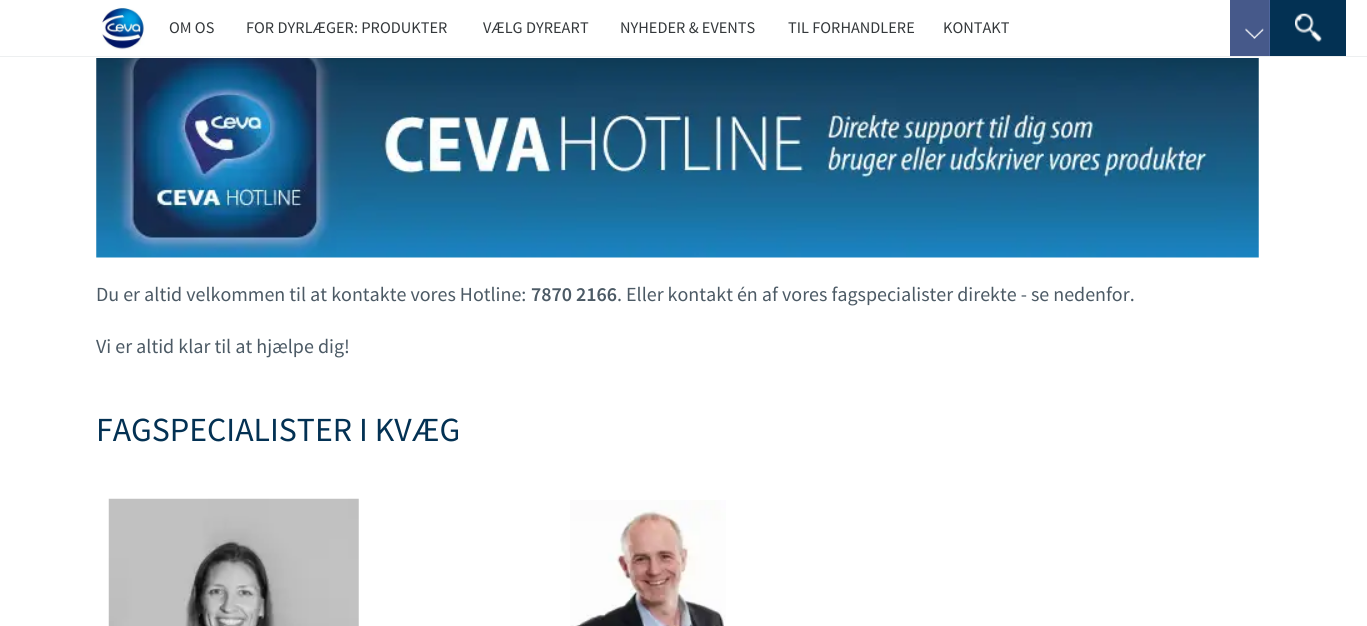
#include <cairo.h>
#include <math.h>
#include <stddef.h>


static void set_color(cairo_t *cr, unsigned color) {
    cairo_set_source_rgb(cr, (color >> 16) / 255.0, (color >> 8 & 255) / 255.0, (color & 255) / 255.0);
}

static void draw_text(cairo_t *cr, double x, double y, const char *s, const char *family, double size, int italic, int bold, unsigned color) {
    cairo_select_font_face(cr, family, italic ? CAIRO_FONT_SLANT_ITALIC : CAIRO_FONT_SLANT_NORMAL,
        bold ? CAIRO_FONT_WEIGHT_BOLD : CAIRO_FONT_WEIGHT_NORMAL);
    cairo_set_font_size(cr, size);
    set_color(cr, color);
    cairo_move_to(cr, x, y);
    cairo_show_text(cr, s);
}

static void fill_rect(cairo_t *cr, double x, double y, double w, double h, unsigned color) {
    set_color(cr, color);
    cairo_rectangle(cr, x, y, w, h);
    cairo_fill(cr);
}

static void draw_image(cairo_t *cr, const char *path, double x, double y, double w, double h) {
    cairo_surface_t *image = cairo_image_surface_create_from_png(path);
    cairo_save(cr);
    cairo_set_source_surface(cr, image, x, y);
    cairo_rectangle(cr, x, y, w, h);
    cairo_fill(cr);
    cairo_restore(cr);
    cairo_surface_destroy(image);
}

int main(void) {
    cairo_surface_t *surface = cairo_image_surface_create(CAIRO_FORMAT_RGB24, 1367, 626);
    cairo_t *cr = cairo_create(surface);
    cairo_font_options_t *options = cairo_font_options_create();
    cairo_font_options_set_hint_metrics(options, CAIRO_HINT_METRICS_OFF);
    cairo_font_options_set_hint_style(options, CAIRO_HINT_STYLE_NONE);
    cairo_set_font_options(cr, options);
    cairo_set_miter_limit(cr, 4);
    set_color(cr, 0xFFFFFF);
    cairo_paint(cr);
    fill_rect(cr, 0, 56, 1367, 1, 0xEDEFF0);
    draw_image(cr, "assets/img1.png", 101, 7, 44, 43);
    fill_rect(cr, 1230, 0, 39, 56, 0x46598A);
    fill_rect(cr, 1269, 0, 1, 56, 0x50669E);
    draw_image(cr, "assets/img2.png", 1245, 28, 19, 11);
    fill_rect(cr, 1270, 0, 76, 56, 0x033153);
    draw_image(cr, "assets/img3.png", 1295, 13, 27, 29);
    draw_text(cr, 169, 33, "OM OS", "Source Sans Pro", 16.25, 0, 0, 0x34383B);
    draw_text(cr, 246, 33, "FOR DYRLÆGER: PRODUKTER", "Source Sans Pro", 16.25, 0, 0, 0x34383B);
    draw_text(cr, 483, 33, "VÆLG DYREART", "Source Sans Pro", 16.25, 0, 0, 0x34383B);
    draw_text(cr, 620, 33, "NYHEDER & EVENTS", "Source Sans Pro", 16.25, 0, 0, 0x34383B);
    draw_text(cr, 788, 33, "TIL FORHANDLERE", "Source Sans Pro", 16.25, 0, 0, 0x34383B);
    draw_text(cr, 943, 33, "KONTAKT", "Source Sans Pro", 16.25, 0, 0, 0x34383B);
    draw_image(cr, "assets/img4.png", 96, 58, 1163, 200);
    draw_text(cr, 96, 301, "Du er altid velkommen til at kontakte vores Hotline:", "Source Sans Pro", 20, 0, 0, 0x4C5A65);
    draw_text(cr, 531, 301, "7870 2166", "Source Sans Pro SemiBold", 20, 0, 0, 0x4C5A65);
    draw_text(cr, 617, 301, ". Eller kontakt én af vores fagspecialister direkte - se nedenfor.", "Source Sans Pro", 20, 0, 0, 0x4C5A65);
    draw_text(cr, 96, 353, "Vi er altid klar til at hjælpe dig!", "Source Sans Pro", 20, 0, 0, 0x4C5A65);
    draw_text(cr, 96, 441, "FAGSPECIALISTER I KVÆG", "Source Sans Pro", 33.75, 0, 0, 0x033153);
    draw_image(cr, "assets/img5.png", 108, 498, 251, 128);
    draw_image(cr, "assets/img6.png", 570, 500, 156, 126);
    cairo_surface_write_to_png(surface, "output.png");
    cairo_font_options_destroy(options);
    cairo_destroy(cr);
    cairo_surface_destroy(surface);
    return 0;
}
